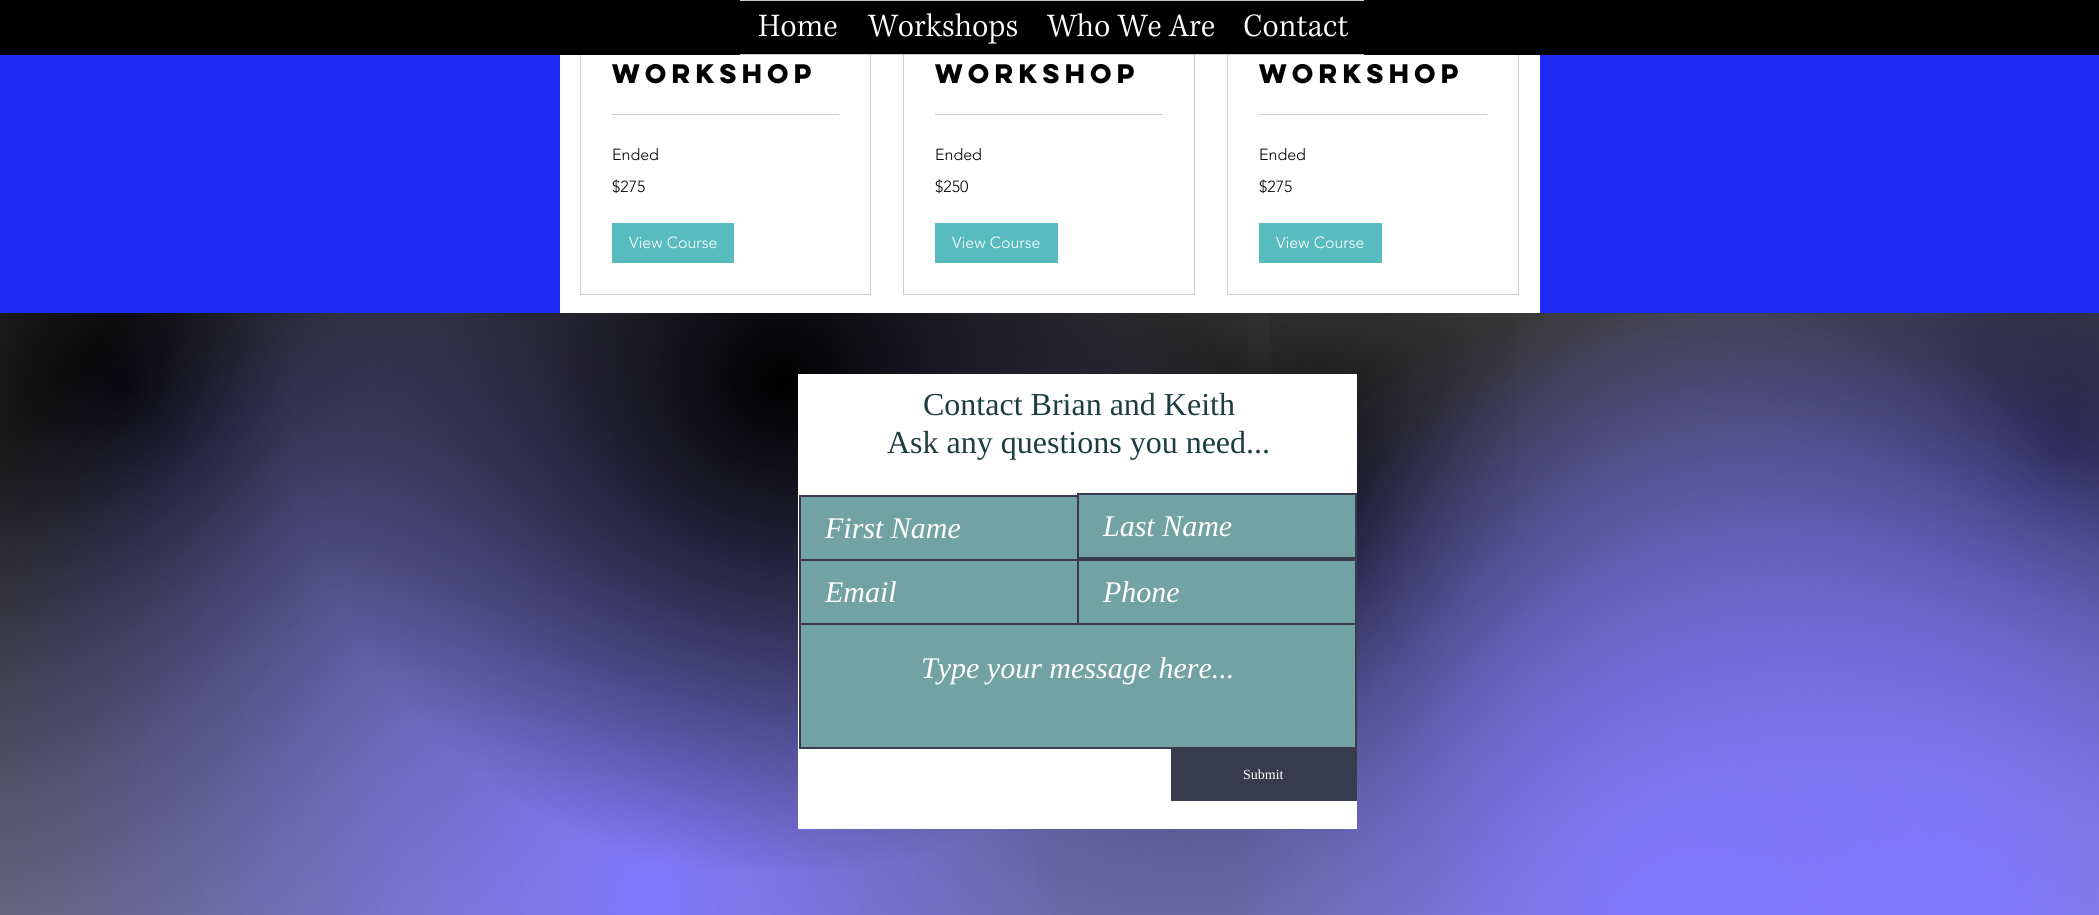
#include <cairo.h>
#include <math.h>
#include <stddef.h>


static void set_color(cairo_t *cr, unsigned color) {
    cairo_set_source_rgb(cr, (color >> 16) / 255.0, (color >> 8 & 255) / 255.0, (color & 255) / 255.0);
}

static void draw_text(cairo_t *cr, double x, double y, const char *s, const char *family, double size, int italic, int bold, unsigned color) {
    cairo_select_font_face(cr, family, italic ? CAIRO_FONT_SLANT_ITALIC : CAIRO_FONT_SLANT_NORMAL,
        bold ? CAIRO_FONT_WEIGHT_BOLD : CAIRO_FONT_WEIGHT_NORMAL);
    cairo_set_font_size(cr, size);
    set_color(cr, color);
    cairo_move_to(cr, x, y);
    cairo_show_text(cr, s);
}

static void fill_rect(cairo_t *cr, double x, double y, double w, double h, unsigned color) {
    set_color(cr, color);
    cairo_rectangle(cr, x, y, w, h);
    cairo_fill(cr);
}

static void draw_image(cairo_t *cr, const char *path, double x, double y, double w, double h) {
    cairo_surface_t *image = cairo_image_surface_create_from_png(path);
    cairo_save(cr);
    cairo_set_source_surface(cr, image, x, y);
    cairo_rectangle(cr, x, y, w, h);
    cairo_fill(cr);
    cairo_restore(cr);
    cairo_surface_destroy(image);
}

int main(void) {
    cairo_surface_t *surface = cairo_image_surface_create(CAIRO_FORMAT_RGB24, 2099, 915);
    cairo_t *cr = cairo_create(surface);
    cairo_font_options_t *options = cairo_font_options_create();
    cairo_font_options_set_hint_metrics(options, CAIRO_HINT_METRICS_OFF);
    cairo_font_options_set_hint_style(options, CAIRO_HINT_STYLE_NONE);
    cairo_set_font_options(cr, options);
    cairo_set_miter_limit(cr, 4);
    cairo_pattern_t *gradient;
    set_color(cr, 0x1F2BF3);
    cairo_paint(cr);
    fill_rect(cr, 560, 55, 980, 258, 0xFFFFFF);
    cairo_rectangle(cr, 580.5, -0.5, 290, 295);
    set_color(cr, 0xCCCCCC);
    cairo_set_line_width(cr, 1);
    cairo_stroke(cr);
    cairo_rectangle(cr, 903.5, -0.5, 291, 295);
    cairo_stroke(cr);
    cairo_rectangle(cr, 1227.5, -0.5, 291, 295);
    cairo_stroke(cr);
    fill_rect(cr, 0, 0, 2099, 55, 0x000000);
    fill_rect(cr, 740, 0, 624, 1, 0xCACACA);
    fill_rect(cr, 740, 54, 624, 1, 0xCACACA);
    draw_image(cr, "assets/img1.png", 758, 14, 79, 23);
    draw_image(cr, "assets/img2.png", 867, 13, 151, 31);
    draw_image(cr, "assets/img3.png", 1046, 13, 168, 24);
    draw_image(cr, "assets/img4.png", 1244, 14, 104, 23);
    draw_text(cr, 612, 83, "Workshop", "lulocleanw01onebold", 24, 0, 1, 0x000000);
    fill_rect(cr, 612, 114, 227, 1, 0xCCCCCC);
    draw_text(cr, 612, 160, "Ended", "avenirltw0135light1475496 Light", 16, 0, 0, 0x000000);
    draw_text(cr, 612, 192, "$275", "avenirltw0135light1475496 Light", 16, 0, 0, 0x000000);
    fill_rect(cr, 612, 223, 122, 40, 0x57BBBF);
    draw_text(cr, 629, 248, "View Course", "avenirltw0135light1475496 Light", 16, 0, 0, 0xFFFFFF);
    draw_text(cr, 935, 83, "Workshop", "lulocleanw01onebold", 24, 0, 1, 0x000000);
    fill_rect(cr, 935, 114, 228, 1, 0xCCCCCC);
    draw_text(cr, 935, 160, "Ended", "avenirltw0135light1475496 Light", 16, 0, 0, 0x000000);
    draw_text(cr, 935, 192, "$250", "avenirltw0135light1475496 Light", 16, 0, 0, 0x000000);
    fill_rect(cr, 935, 223, 123, 40, 0x57BBBF);
    draw_text(cr, 952, 248, "View Course", "avenirltw0135light1475496 Light", 16, 0, 0, 0xFFFFFF);
    draw_text(cr, 1259, 83, "Workshop", "lulocleanw01onebold", 24, 0, 1, 0x000000);
    fill_rect(cr, 1259, 114, 228, 1, 0xCCCCCC);
    draw_text(cr, 1259, 160, "Ended", "avenirltw0135light1475496 Light", 16, 0, 0, 0x000000);
    draw_text(cr, 1259, 192, "$275", "avenirltw0135light1475496 Light", 16, 0, 0, 0x000000);
    fill_rect(cr, 1259, 223, 123, 40, 0x57BBBF);
    draw_text(cr, 1276, 248, "View Course", "avenirltw0135light1475496 Light", 16, 0, 0, 0xFFFFFF);
    gradient = cairo_pattern_create_radial(1295, 539, 0, 1295, 539, 1349);
    cairo_pattern_add_color_stop_rgba(gradient, 0, 0, 0, 0, 1);
    cairo_pattern_add_color_stop_rgba(gradient, 0.7, 1, 1, 1, 1);
    cairo_set_source(cr, gradient);
    cairo_pattern_destroy(gradient);
    cairo_rectangle(cr, 0, 313, 2099, 602);
    cairo_fill(cr);
    gradient = cairo_pattern_create_radial(129, 389, 0, 129, 389, 2039);
    cairo_pattern_add_color_stop_rgba(gradient, 0, 0, 0, 0, 1);
    cairo_pattern_add_color_stop_rgba(gradient, 0.7, 0, 0, 0, 0);
    cairo_set_source(cr, gradient);
    cairo_pattern_destroy(gradient);
    cairo_rectangle(cr, 0, 313, 1517, 602);
    cairo_fill(cr);
    gradient = cairo_pattern_create_radial(648, 893, 0, 648, 893, 1563);
    cairo_pattern_add_color_stop_rgba(gradient, 0, 0.502, 0.475, 1, 0.99);
    cairo_pattern_add_color_stop_rgba(gradient, 0.5, 0.502, 0.475, 1, 0);
    cairo_set_source(cr, gradient);
    cairo_pattern_destroy(gradient);
    cairo_rectangle(cr, 0, 313, 1412, 602);
    cairo_fill(cr);
    gradient = cairo_pattern_create_radial(2059, 453, 0, 2059, 453, 2110);
    cairo_pattern_add_color_stop_rgba(gradient, 0, 0, 0, 0, 1);
    cairo_pattern_add_color_stop_rgba(gradient, 0.4, 0, 0, 0, 0);
    cairo_set_source(cr, gradient);
    cairo_pattern_destroy(gradient);
    cairo_rectangle(cr, 1270, 313, 829, 602);
    cairo_fill(cr);
    gradient = cairo_pattern_create_radial(781, 381, 0, 781, 381, 1422);
    cairo_pattern_add_color_stop_rgba(gradient, 0, 0, 0, 0, 1);
    cairo_pattern_add_color_stop_rgba(gradient, 0.35, 0, 0, 0, 0);
    cairo_set_source(cr, gradient);
    cairo_pattern_destroy(gradient);
    cairo_rectangle(cr, 298, 313, 950, 555);
    cairo_fill(cr);
    gradient = cairo_pattern_create_radial(1942, 899, 0, 1942, 899, 2028);
    cairo_pattern_add_color_stop_rgba(gradient, 0, 0.502, 0.475, 1, 1);
    cairo_pattern_add_color_stop_rgba(gradient, 0.35, 0.502, 0.475, 1, 0);
    cairo_set_source(cr, gradient);
    cairo_pattern_destroy(gradient);
    cairo_rectangle(cr, 1249, 313, 850, 602);
    cairo_fill(cr);
    gradient = cairo_pattern_create_radial(1679, 915, 0, 1679, 915, 1783);
    cairo_pattern_add_color_stop_rgba(gradient, 0, 0.502, 0.475, 1, 1);
    cairo_pattern_add_color_stop_rgba(gradient, 0.35, 0.502, 0.475, 1, 0);
    cairo_set_source(cr, gradient);
    cairo_pattern_destroy(gradient);
    cairo_rectangle(cr, 1075, 313, 1024, 602);
    cairo_fill(cr);
    fill_rect(cr, 798, 374, 559, 455, 0xFFFFFF);
    draw_text(cr, 923, 415, "Contact Brian and Keith", "Liberation Serif", 32, 0, 0, 0x1D3E40);
    draw_text(cr, 887, 453, "Ask any questions you need...", "Liberation Serif", 32, 0, 0, 0x1D3E40);
    set_color(cr, 0x73A2A5);
    cairo_rectangle(cr, 800, 496, 278, 64);
    cairo_fill_preserve(cr);
    set_color(cr, 0x373B4D);
    cairo_set_line_width(cr, 2);
    cairo_stroke(cr);
    draw_text(cr, 825, 538, "First Name", "Liberation Serif", 30, 1, 0, 0xFFFFFF);
    cairo_set_source_rgba(cr, 0.227, 0.486, 0.502, 0.71);
    cairo_rectangle(cr, 1078, 494, 278, 64);
    cairo_fill_preserve(cr);
    set_color(cr, 0x373B4D);
    cairo_stroke(cr);
    draw_text(cr, 1103, 536, "Last Name", "Liberation Serif", 30, 1, 0, 0xFFFFFF);
    cairo_set_source_rgba(cr, 0.227, 0.486, 0.502, 0.71);
    cairo_rectangle(cr, 800, 560, 278, 64);
    cairo_fill_preserve(cr);
    set_color(cr, 0x373B4D);
    cairo_stroke(cr);
    draw_text(cr, 825, 602, "Email", "Liberation Serif", 30, 1, 0, 0xFFFFFF);
    cairo_set_source_rgba(cr, 0.227, 0.486, 0.502, 0.71);
    cairo_rectangle(cr, 1078, 560, 278, 64);
    cairo_fill_preserve(cr);
    set_color(cr, 0x373B4D);
    cairo_stroke(cr);
    draw_text(cr, 1103, 602, "Phone", "Liberation Serif", 30, 1, 0, 0xFFFFFF);
    cairo_set_source_rgba(cr, 0.227, 0.486, 0.502, 0.71);
    cairo_rectangle(cr, 800, 624, 556, 124);
    cairo_fill_preserve(cr);
    set_color(cr, 0x373B4D);
    cairo_stroke(cr);
    draw_text(cr, 921, 678, "Type your message here...", "Liberation Serif", 30, 1, 0, 0xFFFFFF);
    fill_rect(cr, 1171, 749, 186, 52, 0x373B4D);
    draw_text(cr, 1243, 779, "Submit", "Liberation Serif", 14, 0, 0, 0xFFFFFF);
    cairo_surface_write_to_png(surface, "output.png");
    cairo_font_options_destroy(options);
    cairo_destroy(cr);
    cairo_surface_destroy(surface);
    return 0;
}
